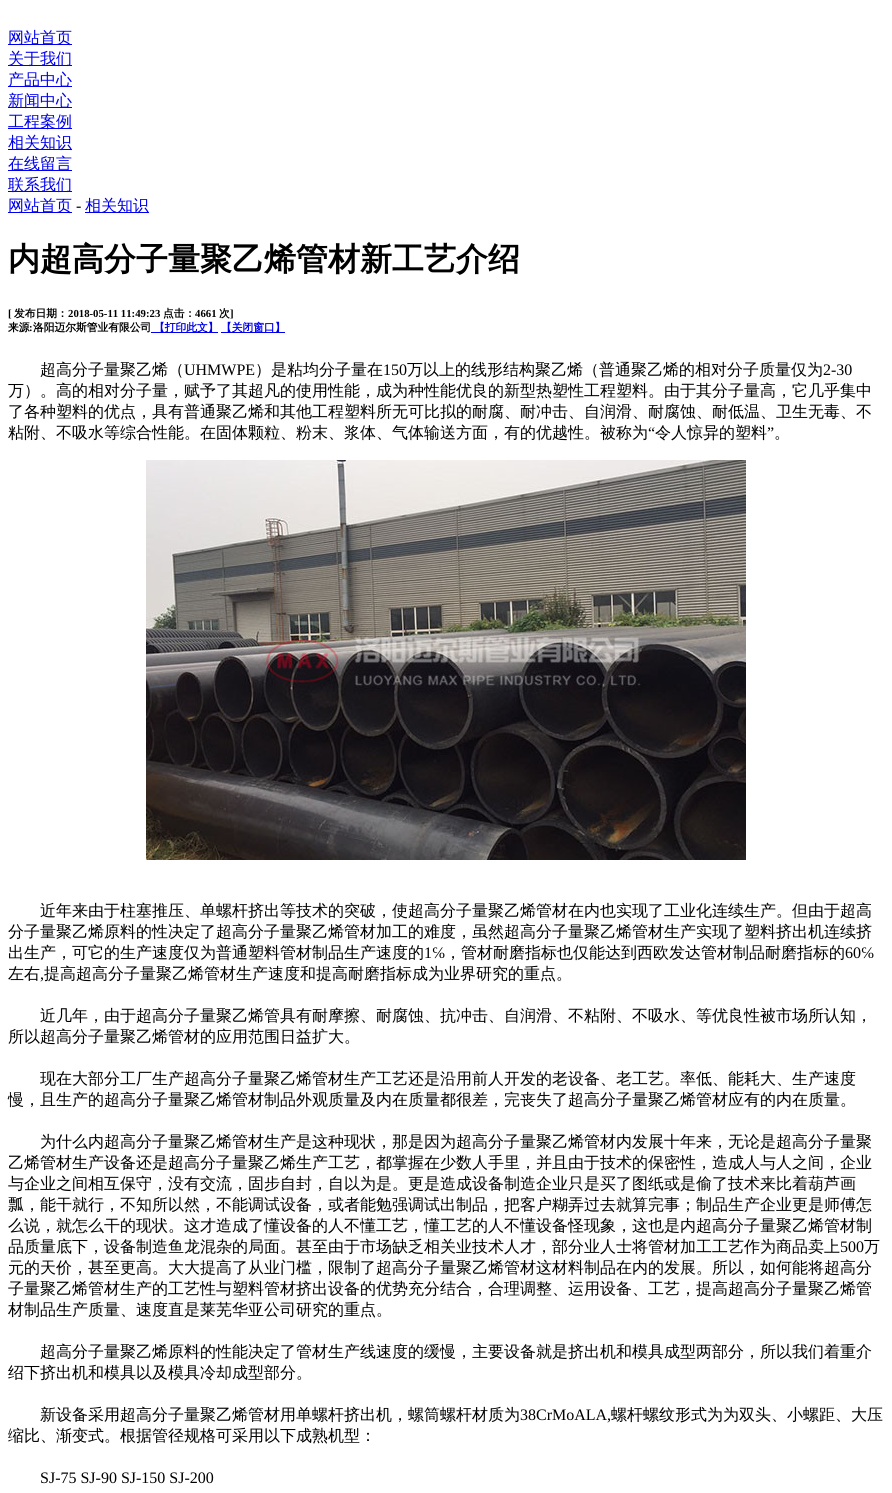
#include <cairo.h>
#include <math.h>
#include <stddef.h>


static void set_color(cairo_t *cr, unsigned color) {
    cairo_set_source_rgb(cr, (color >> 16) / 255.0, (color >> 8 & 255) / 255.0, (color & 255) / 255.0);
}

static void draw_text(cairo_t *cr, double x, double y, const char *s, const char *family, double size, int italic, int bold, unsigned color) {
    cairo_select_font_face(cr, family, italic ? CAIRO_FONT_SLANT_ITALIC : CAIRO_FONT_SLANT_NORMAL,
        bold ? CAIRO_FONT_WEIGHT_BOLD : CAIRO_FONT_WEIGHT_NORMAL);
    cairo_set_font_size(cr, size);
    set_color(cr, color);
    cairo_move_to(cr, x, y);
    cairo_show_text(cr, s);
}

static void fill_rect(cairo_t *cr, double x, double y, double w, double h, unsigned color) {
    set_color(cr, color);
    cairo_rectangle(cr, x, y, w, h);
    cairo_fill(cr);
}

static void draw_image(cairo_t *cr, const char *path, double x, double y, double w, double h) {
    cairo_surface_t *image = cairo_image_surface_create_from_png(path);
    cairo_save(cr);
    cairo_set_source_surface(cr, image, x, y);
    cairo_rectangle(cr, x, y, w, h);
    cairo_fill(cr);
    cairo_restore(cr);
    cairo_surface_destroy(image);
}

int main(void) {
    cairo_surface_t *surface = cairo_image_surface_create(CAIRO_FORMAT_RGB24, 892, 1493);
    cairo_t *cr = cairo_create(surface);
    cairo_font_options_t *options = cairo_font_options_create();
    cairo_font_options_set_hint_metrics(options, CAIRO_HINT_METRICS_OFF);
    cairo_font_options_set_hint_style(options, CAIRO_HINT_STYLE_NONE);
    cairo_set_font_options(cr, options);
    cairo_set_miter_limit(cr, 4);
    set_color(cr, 0xFFFFFF);
    cairo_paint(cr);
    fill_rect(cr, 8, 44, 64, 1, 0x0000EE);
    draw_text(cr, 8, 43, "网站首页", "WenQuanYi Zen Hei Medium", 16, 0, 0, 0x0000EE);
    fill_rect(cr, 8, 65, 64, 1, 0x0000EE);
    draw_text(cr, 8, 64, "关于我们", "WenQuanYi Zen Hei Medium", 16, 0, 0, 0x0000EE);
    fill_rect(cr, 8, 86, 64, 1, 0x0000EE);
    draw_text(cr, 8, 85, "产品中心", "WenQuanYi Zen Hei Medium", 16, 0, 0, 0x0000EE);
    fill_rect(cr, 8, 107, 64, 1, 0x0000EE);
    draw_text(cr, 8, 106, "新闻中心", "WenQuanYi Zen Hei Medium", 16, 0, 0, 0x0000EE);
    fill_rect(cr, 8, 128, 64, 1, 0x0000EE);
    draw_text(cr, 8, 127, "工程案例", "WenQuanYi Zen Hei Medium", 16, 0, 0, 0x0000EE);
    fill_rect(cr, 8, 149, 64, 1, 0x0000EE);
    draw_text(cr, 8, 148, "相关知识", "WenQuanYi Zen Hei Medium", 16, 0, 0, 0x0000EE);
    fill_rect(cr, 8, 170, 64, 1, 0x0000EE);
    draw_text(cr, 8, 169, "在线留言", "WenQuanYi Zen Hei Medium", 16, 0, 0, 0x0000EE);
    fill_rect(cr, 8, 191, 64, 1, 0x0000EE);
    draw_text(cr, 8, 190, "联系我们", "WenQuanYi Zen Hei Medium", 16, 0, 0, 0x0000EE);
    fill_rect(cr, 8, 212, 64, 1, 0x0000EE);
    draw_text(cr, 8, 211, "网站首页", "WenQuanYi Zen Hei Medium", 16, 0, 0, 0x0000EE);
    draw_text(cr, 76, 211, "-", "Liberation Serif", 16, 0, 0, 0x000000);
    fill_rect(cr, 85, 212, 64, 1, 0x0000EE);
    draw_text(cr, 85, 211, "相关知识", "WenQuanYi Zen Hei Medium", 16, 0, 0, 0x0000EE);
    draw_text(cr, 8, 270, "内超高分子量聚乙烯管材新工艺介绍", "WenQuanYi Zen Hei", 32, 0, 1, 0x000000);
    draw_text(cr, 8, 317, "[", "Liberation Serif", 10.75, 0, 1, 0x000000);
    draw_text(cr, 14, 317, "发布日期：", "WenQuanYi Zen Hei", 10.75, 0, 1, 0x000000);
    draw_text(cr, 68, 317, "2018-05-11 11:49:23", "Liberation Serif", 10.75, 0, 1, 0x000000);
    draw_text(cr, 163, 317, "点击：", "WenQuanYi Zen Hei", 10.75, 0, 1, 0x000000);
    draw_text(cr, 195, 317, "4661", "Liberation Serif", 10.75, 0, 1, 0x000000);
    draw_text(cr, 219, 317, "次", "WenQuanYi Zen Hei", 10.75, 0, 1, 0x000000);
    draw_text(cr, 230, 317, "]", "Liberation Serif", 10.75, 0, 1, 0x000000);
    draw_text(cr, 8, 331, "来源", "WenQuanYi Zen Hei", 10.75, 0, 1, 0x000000);
    draw_text(cr, 29, 331, ":", "Liberation Serif", 10.75, 0, 1, 0x000000);
    draw_text(cr, 33, 331, "洛阳迈尔斯管业有限公司", "WenQuanYi Zen Hei", 10.75, 0, 1, 0x000000);
    fill_rect(cr, 151, 332, 67, 1, 0x0000EE);
    draw_text(cr, 154, 331, "【打印此文】", "WenQuanYi Zen Hei", 10.75, 0, 1, 0x0000EE);
    fill_rect(cr, 221, 332, 64, 1, 0x0000EE);
    draw_text(cr, 221, 331, "【关闭窗口】", "WenQuanYi Zen Hei", 10.75, 0, 1, 0x0000EE);
    draw_text(cr, 40, 375, "超高分子量聚乙烯（", "WenQuanYi Zen Hei Medium", 16, 0, 0, 0x000000);
    draw_text(cr, 184, 375, "UHMWPE", "Liberation Serif", 16, 0, 0, 0x000000);
    draw_text(cr, 255, 375, "）是粘均分子量在", "WenQuanYi Zen Hei Medium", 16, 0, 0, 0x000000);
    draw_text(cr, 383, 375, "150", "Liberation Serif", 16, 0, 0, 0x000000);
    draw_text(cr, 407, 375, "万以上的线形结构聚乙烯（普通聚乙烯的相对分子质量仅为", "WenQuanYi Zen Hei Medium", 16, 0, 0, 0x000000);
    draw_text(cr, 823, 375, "2-30", "Liberation Serif", 16, 0, 0, 0x000000);
    draw_text(cr, 8, 396, "万）。高的相对分子量，赋予了其超凡的使用性能，成为种性能优良的新型热塑性工程塑料。由于其分子量高，它几乎集中", "WenQuanYi Zen Hei Medium", 16, 0, 0, 0x000000);
    draw_text(cr, 8, 417, "了各种塑料的优点，具有普通聚乙烯和其他工程塑料所无可比拟的耐腐、耐冲击、自润滑、耐腐蚀、耐低温、卫生无毒、不", "WenQuanYi Zen Hei Medium", 16, 0, 0, 0x000000);
    draw_text(cr, 8, 438, "粘附、不吸水等综合性能。在固体颗粒、粉末、浆体、气体输送方面，有的优越性。被称为", "WenQuanYi Zen Hei Medium", 16, 0, 0, 0x000000);
    draw_text(cr, 648, 438, "“", "Liberation Serif", 16, 0, 0, 0x000000);
    draw_text(cr, 655, 438, "令人惊异的塑料", "WenQuanYi Zen Hei Medium", 16, 0, 0, 0x000000);
    draw_text(cr, 767, 438, "”", "Liberation Serif", 16, 0, 0, 0x000000);
    draw_text(cr, 774, 438, "。", "WenQuanYi Zen Hei Medium", 16, 0, 0, 0x000000);
    draw_image(cr, "assets/img1.png", 146, 460, 600, 400);
    draw_text(cr, 40, 916, "近年来由于柱塞推压、单螺杆挤出等技术的突破，使超高分子量聚乙烯管材在内也实现了工业化连续生产。但由于超高", "WenQuanYi Zen Hei Medium", 16, 0, 0, 0x000000);
    draw_text(cr, 8, 937, "分子量聚乙烯原料的性决定了超高分子量聚乙烯管材加工的难度，虽然超高分子量聚乙烯管材生产实现了塑料挤出机连续挤", "WenQuanYi Zen Hei Medium", 16, 0, 0, 0x000000);
    draw_text(cr, 8, 958, "出生产，可它的生产速度仅为普通塑料管材制品生产速度的", "WenQuanYi Zen Hei Medium", 16, 0, 0, 0x000000);
    draw_text(cr, 424, 958, "1℅", "Liberation Serif", 16, 0, 0, 0x000000);
    draw_text(cr, 445, 958, "，管材耐磨指标也仅能达到西欧发达管材制品耐磨指标的", "WenQuanYi Zen Hei Medium", 16, 0, 0, 0x000000);
    draw_text(cr, 845, 958, "60℅", "Liberation Serif", 16, 0, 0, 0x000000);
    draw_text(cr, 8, 979, "左右", "WenQuanYi Zen Hei Medium", 16, 0, 0, 0x000000);
    draw_text(cr, 40, 979, ",", "Liberation Serif", 16, 0, 0, 0x000000);
    draw_text(cr, 44, 979, "提高超高分子量聚乙烯管材生产速度和提高耐磨指标成为业界研究的重点。", "WenQuanYi Zen Hei Medium", 16, 0, 0, 0x000000);
    draw_text(cr, 40, 1021, "近几年，由于超高分子量聚乙烯管具有耐摩擦、耐腐蚀、抗冲击、自润滑、不粘附、不吸水、等优良性被市场所认知，", "WenQuanYi Zen Hei Medium", 16, 0, 0, 0x000000);
    draw_text(cr, 8, 1042, "所以超高分子量聚乙烯管材的应用范围日益扩大。", "WenQuanYi Zen Hei Medium", 16, 0, 0, 0x000000);
    draw_text(cr, 40, 1084, "现在大部分工厂生产超高分子量聚乙烯管材生产工艺还是沿用前人开发的老设备、老工艺。率低、能耗大、生产速度", "WenQuanYi Zen Hei Medium", 16, 0, 0, 0x000000);
    draw_text(cr, 8, 1105, "慢，且生产的超高分子量聚乙烯管材制品外观质量及内在质量都很差，完丧失了超高分子量聚乙烯管材应有的内在质量。", "WenQuanYi Zen Hei Medium", 16, 0, 0, 0x000000);
    draw_text(cr, 40, 1147, "为什么内超高分子量聚乙烯管材生产是这种现状，那是因为超高分子量聚乙烯管材内发展十年来，无论是超高分子量聚", "WenQuanYi Zen Hei Medium", 16, 0, 0, 0x000000);
    draw_text(cr, 8, 1168, "乙烯管材生产设备还是超高分子量聚乙烯生产工艺，都掌握在少数人手里，并且由于技术的保密性，造成人与人之间，企业", "WenQuanYi Zen Hei Medium", 16, 0, 0, 0x000000);
    draw_text(cr, 8, 1189, "与企业之间相互保守，没有交流，固步自封，自以为是。更是造成设备制造企业只是买了图纸或是偷了技术来比着葫芦画", "WenQuanYi Zen Hei Medium", 16, 0, 0, 0x000000);
    draw_text(cr, 8, 1210, "瓢，能干就行，不知所以然，不能调试设备，或者能勉强调试出制品，把客户糊弄过去就算完事；制品生产企业更是师傅怎", "WenQuanYi Zen Hei Medium", 16, 0, 0, 0x000000);
    draw_text(cr, 8, 1231, "么说，就怎么干的现状。这才造成了懂设备的人不懂工艺，懂工艺的人不懂设备怪现象，这也是内超高分子量聚乙烯管材制", "WenQuanYi Zen Hei Medium", 16, 0, 0, 0x000000);
    draw_text(cr, 8, 1252, "品质量底下，设备制造鱼龙混杂的局面。甚至由于市场缺乏相关业技术人才，部分业人士将管材加工工艺作为商品卖上", "WenQuanYi Zen Hei Medium", 16, 0, 0, 0x000000);
    draw_text(cr, 840, 1252, "500", "Liberation Serif", 16, 0, 0, 0x000000);
    draw_text(cr, 864, 1252, "万", "WenQuanYi Zen Hei Medium", 16, 0, 0, 0x000000);
    draw_text(cr, 8, 1273, "元的天价，甚至更高。大大提高了从业门槛，限制了超高分子量聚乙烯管材这材料制品在内的发展。所以，如何能将超高分", "WenQuanYi Zen Hei Medium", 16, 0, 0, 0x000000);
    draw_text(cr, 8, 1294, "子量聚乙烯管材生产的工艺性与塑料管材挤出设备的优势充分结合，合理调整、运用设备、工艺，提高超高分子量聚乙烯管", "WenQuanYi Zen Hei Medium", 16, 0, 0, 0x000000);
    draw_text(cr, 8, 1315, "材制品生产质量、速度直是莱芜华亚公司研究的重点。", "WenQuanYi Zen Hei Medium", 16, 0, 0, 0x000000);
    draw_text(cr, 40, 1357, "超高分子量聚乙烯原料的性能决定了管材生产线速度的缓慢，主要设备就是挤出机和模具成型两部分，所以我们着重介", "WenQuanYi Zen Hei Medium", 16, 0, 0, 0x000000);
    draw_text(cr, 8, 1378, "绍下挤出机和模具以及模具冷却成型部分。", "WenQuanYi Zen Hei Medium", 16, 0, 0, 0x000000);
    draw_text(cr, 40, 1420, "新设备采用超高分子量聚乙烯管材用单螺杆挤出机，螺筒螺杆材质为", "WenQuanYi Zen Hei Medium", 16, 0, 0, 0x000000);
    draw_text(cr, 520, 1420, "38CrMoALA,", "Liberation Serif", 16, 0, 0, 0x000000);
    draw_text(cr, 611, 1420, "螺杆螺纹形式为为双头、小螺距、大压", "WenQuanYi Zen Hei Medium", 16, 0, 0, 0x000000);
    draw_text(cr, 8, 1441, "缩比、渐变式。根据管径规格可采用以下成熟机型：", "WenQuanYi Zen Hei Medium", 16, 0, 0, 0x000000);
    draw_text(cr, 40, 1483, "SJ-75 SJ-90 SJ-150 SJ-200", "Liberation Serif", 16, 0, 0, 0x000000);
    cairo_surface_write_to_png(surface, "output.png");
    cairo_font_options_destroy(options);
    cairo_destroy(cr);
    cairo_surface_destroy(surface);
    return 0;
}
